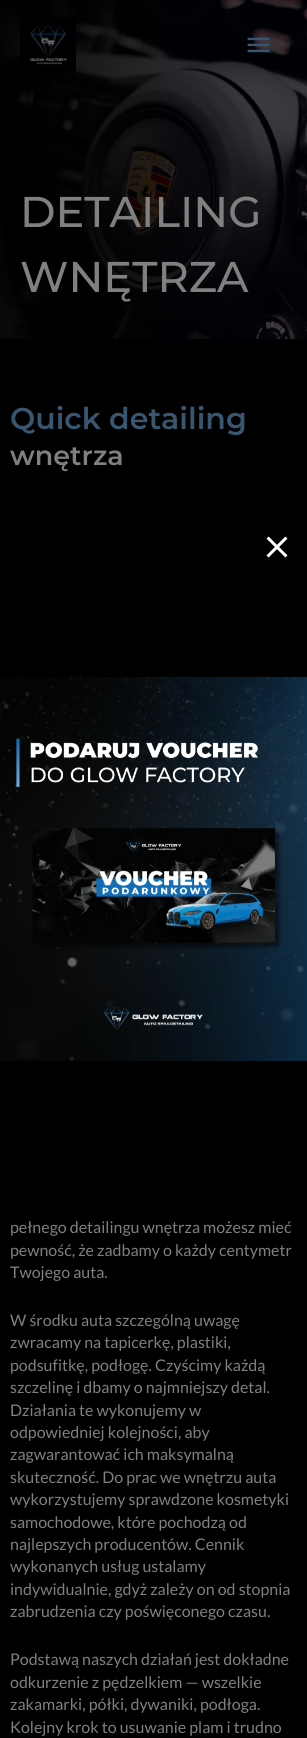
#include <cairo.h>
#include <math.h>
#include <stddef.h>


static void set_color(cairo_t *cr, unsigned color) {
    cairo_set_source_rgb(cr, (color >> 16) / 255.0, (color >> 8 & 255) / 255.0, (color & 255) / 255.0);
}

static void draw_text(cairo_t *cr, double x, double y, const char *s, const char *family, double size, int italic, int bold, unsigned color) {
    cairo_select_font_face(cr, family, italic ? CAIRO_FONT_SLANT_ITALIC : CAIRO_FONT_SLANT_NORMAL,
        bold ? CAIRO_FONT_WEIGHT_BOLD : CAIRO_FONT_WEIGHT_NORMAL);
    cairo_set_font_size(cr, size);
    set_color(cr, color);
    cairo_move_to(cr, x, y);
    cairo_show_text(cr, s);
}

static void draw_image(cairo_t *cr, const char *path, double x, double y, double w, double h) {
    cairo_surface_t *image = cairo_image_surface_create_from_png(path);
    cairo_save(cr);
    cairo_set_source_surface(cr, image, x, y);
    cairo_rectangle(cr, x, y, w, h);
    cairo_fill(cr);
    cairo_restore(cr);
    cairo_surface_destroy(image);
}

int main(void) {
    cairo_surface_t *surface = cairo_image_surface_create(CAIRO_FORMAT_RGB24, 307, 1738);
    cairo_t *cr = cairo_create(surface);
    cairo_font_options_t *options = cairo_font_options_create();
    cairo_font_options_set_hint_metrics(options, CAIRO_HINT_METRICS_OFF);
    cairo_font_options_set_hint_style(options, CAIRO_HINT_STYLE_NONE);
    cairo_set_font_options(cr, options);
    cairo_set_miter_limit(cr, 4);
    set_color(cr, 0x000000);
    cairo_paint(cr);
    draw_image(cr, "assets/img3.png", 0, 0, 307, 339);
    draw_image(cr, "assets/img1.png", 20, 17, 56, 56);
    draw_image(cr, "assets/img2.png", 247, 37, 23, 16);
    draw_text(cr, 20, 227, "DETAILING", "Montserrat Medium", 43, 0, 0, 0x808080);
    draw_text(cr, 20, 292, "WNĘTRZA", "Montserrat Medium", 43, 0, 0, 0x808080);
    draw_text(cr, 10, 429, "Quick detailing", "Montserrat SemiBold", 30, 0, 0, 0x395670);
    draw_text(cr, 10, 465, "wnętrza", "Montserrat SemiBold", 27, 0, 0, 0x808080);
    draw_text(cr, 10, 1233, "pełnego detailingu wnętrza możesz mieć", "Lato", 16, 0, 0, 0x808080);
    draw_text(cr, 10, 1256, "pewność, że zadbamy o każdy centymetr", "Lato", 16, 0, 0, 0x808080);
    draw_text(cr, 10, 1278, "Twojego auta.", "Lato", 16, 0, 0, 0x808080);
    draw_text(cr, 10, 1326, "W środku auta szczególną uwagę", "Lato", 16, 0, 0, 0x808080);
    draw_text(cr, 10, 1348, "zwracamy na tapicerkę, plastiki,", "Lato", 16, 0, 0, 0x808080);
    draw_text(cr, 10, 1371, "podsufitkę, podłogę. Czyścimy każdą", "Lato", 16, 0, 0, 0x808080);
    draw_text(cr, 10, 1393, "szczelinę i dbamy o najmniejszy detal.", "Lato", 16, 0, 0, 0x808080);
    draw_text(cr, 10, 1416, "Działania te wykonujemy w", "Lato", 16, 0, 0, 0x808080);
    draw_text(cr, 10, 1438, "odpowiedniej kolejności, aby", "Lato", 16, 0, 0, 0x808080);
    draw_text(cr, 10, 1460, "zagwarantować ich maksymalną", "Lato", 16, 0, 0, 0x808080);
    draw_text(cr, 10, 1483, "skuteczność. Do prac we wnętrzu auta", "Lato", 16, 0, 0, 0x808080);
    draw_text(cr, 10, 1505, "wykorzystujemy sprawdzone kosmetyki", "Lato", 16, 0, 0, 0x808080);
    draw_text(cr, 10, 1528, "samochodowe, które pochodzą od", "Lato", 16, 0, 0, 0x808080);
    draw_text(cr, 10, 1550, "najlepszych producentów. Cennik", "Lato", 16, 0, 0, 0x808080);
    draw_text(cr, 10, 1572, "wykonanych usług ustalamy", "Lato", 16, 0, 0, 0x808080);
    draw_text(cr, 10, 1595, "indywidualnie, gdyż zależy on od stopnia", "Lato", 16, 0, 0, 0x808080);
    draw_text(cr, 10, 1617, "zabrudzenia czy poświęconego czasu.", "Lato", 16, 0, 0, 0x808080);
    draw_text(cr, 10, 1665, "Podstawą naszych działań jest dokładne", "Lato", 16, 0, 0, 0x808080);
    draw_text(cr, 10, 1688, "odkurzenie z pędzelkiem — wszelkie", "Lato", 16, 0, 0, 0x808080);
    draw_text(cr, 10, 1710, "zakamarki, półki, dywaniki, podłoga.", "Lato", 16, 0, 0, 0x808080);
    draw_text(cr, 10, 1733, "Kolejny krok to usuwanie plam i trudno", "Lato", 16, 0, 0, 0x808080);
    draw_image(cr, "assets/img4.png", 266, 536, 22, 22);
    draw_image(cr, "assets/img5.png", 0, 677, 307, 384);
    cairo_surface_write_to_png(surface, "output.png");
    cairo_font_options_destroy(options);
    cairo_destroy(cr);
    cairo_surface_destroy(surface);
    return 0;
}
